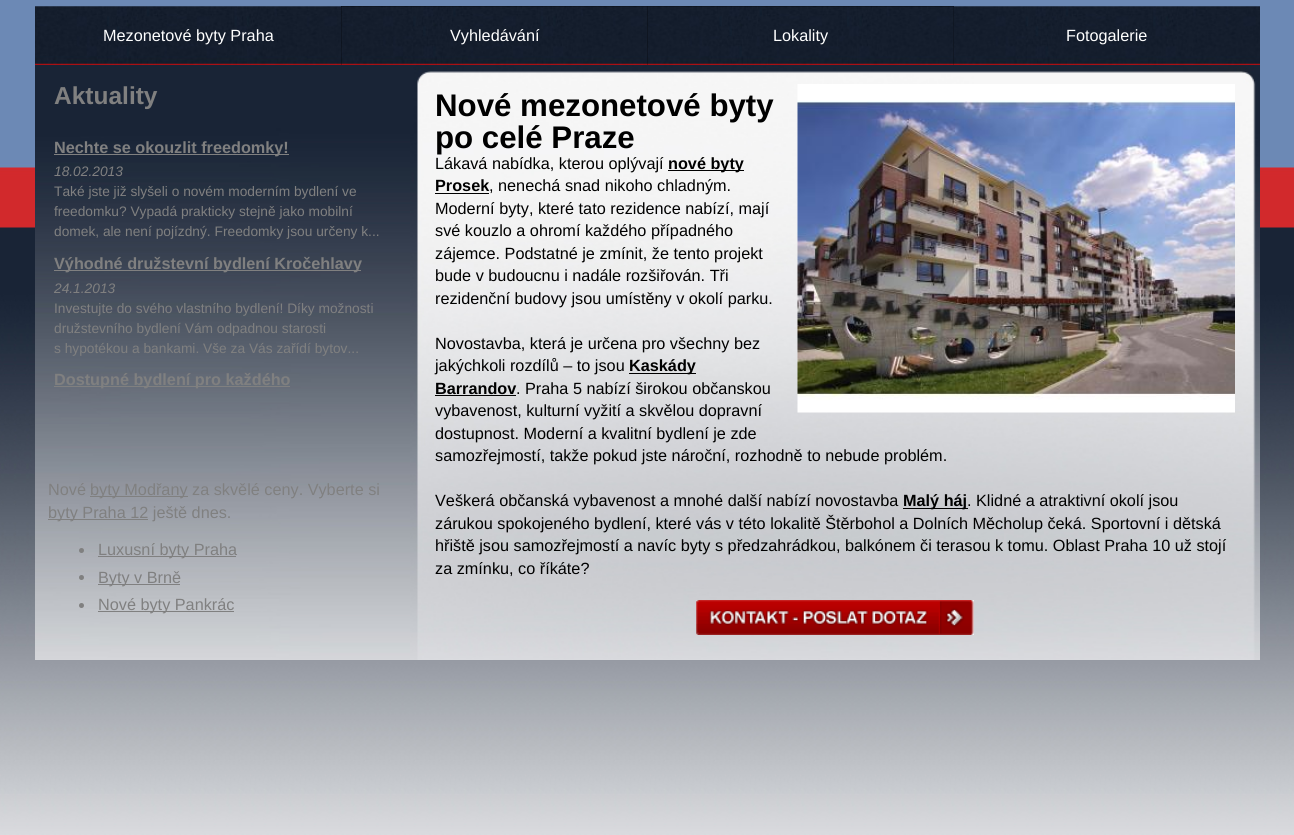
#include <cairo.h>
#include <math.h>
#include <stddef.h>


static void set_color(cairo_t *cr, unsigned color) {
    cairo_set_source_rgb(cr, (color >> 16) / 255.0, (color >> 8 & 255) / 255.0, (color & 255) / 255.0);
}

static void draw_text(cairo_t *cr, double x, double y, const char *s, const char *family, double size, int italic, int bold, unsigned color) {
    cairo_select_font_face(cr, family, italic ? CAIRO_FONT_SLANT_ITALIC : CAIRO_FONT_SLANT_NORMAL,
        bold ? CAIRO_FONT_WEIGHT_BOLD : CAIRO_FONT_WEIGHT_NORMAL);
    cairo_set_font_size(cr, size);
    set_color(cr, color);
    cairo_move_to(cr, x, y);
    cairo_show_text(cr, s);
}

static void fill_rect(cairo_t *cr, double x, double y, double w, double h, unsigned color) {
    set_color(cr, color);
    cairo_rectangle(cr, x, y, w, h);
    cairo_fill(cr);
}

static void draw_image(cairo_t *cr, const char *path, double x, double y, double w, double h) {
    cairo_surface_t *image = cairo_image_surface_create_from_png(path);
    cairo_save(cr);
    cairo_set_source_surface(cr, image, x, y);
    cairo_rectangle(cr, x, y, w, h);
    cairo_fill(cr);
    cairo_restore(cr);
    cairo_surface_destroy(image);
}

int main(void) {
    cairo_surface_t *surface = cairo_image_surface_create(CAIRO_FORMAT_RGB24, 1294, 835);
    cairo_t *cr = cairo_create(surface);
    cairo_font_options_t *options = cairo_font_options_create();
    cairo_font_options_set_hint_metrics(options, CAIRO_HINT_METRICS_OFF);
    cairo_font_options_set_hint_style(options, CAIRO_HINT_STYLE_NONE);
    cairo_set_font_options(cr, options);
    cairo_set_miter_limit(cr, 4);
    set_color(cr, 0xFFFFFF);
    cairo_paint(cr);
    draw_image(cr, "assets/img1.png", 0, 0, 1294, 835);
    draw_image(cr, "assets/img2.png", 35, 6, 306, 59);
    draw_text(cr, 103, 41, "Mezonetové byty Praha", "Liberation Sans", 16.25, 0, 0, 0xFFFFFF);
    fill_rect(cr, 341, 6, 613, 59, 0x000000);
    draw_image(cr, "assets/img3.png", 341, 6, 307, 59);
    draw_text(cr, 450, 41, "Vyhledávání", "Liberation Sans", 16.25, 0, 0, 0xFFFFFF);
    draw_image(cr, "assets/img4.png", 647, 6, 307, 59);
    draw_text(cr, 773, 41, "Lokality", "Liberation Sans", 16.25, 0, 0, 0xFFFFFF);
    draw_image(cr, "assets/img5.png", 953, 6, 307, 59);
    draw_text(cr, 1066, 41, "Fotogalerie", "Liberation Sans", 16.25, 0, 0, 0xFFFFFF);
    draw_image(cr, "assets/img6.png", 35, 65, 375, 595);
    draw_text(cr, 54, 104, "Aktuality", "Liberation Sans", 24.5, 0, 1, 0x808080);
    fill_rect(cr, 54, 154, 235, 1, 0x808080);
    draw_text(cr, 54, 153, "Nechte se okouzlit freedomky!", "Liberation Sans", 16.25, 0, 1, 0x808080);
    draw_text(cr, 54, 176, "18.02.2013", "Liberation Sans", 13.75, 1, 0, 0x808080);
    draw_text(cr, 54, 196, "Také jste již slyšeli o novém moderním bydlení ve", "Liberation Sans", 13.75, 0, 0, 0x808080);
    draw_text(cr, 54, 216, "freedomku? Vypadá prakticky stejně jako mobilní", "Liberation Sans", 13.75, 0, 0, 0x808080);
    draw_text(cr, 54, 236, "domek, ale není pojízdný. Freedomky jsou určeny k...", "Liberation Sans", 13.75, 0, 0, 0x808080);
    fill_rect(cr, 54, 270, 307, 1, 0x808080);
    draw_text(cr, 54, 269, "Výhodné družstevní bydlení Kročehlavy", "Liberation Sans", 16.25, 0, 1, 0x808080);
    draw_text(cr, 54, 293, "24.1.2013", "Liberation Sans", 13.75, 1, 0, 0x808080);
    draw_text(cr, 54, 313, "Investujte do svého vlastního bydlení! Díky možnosti", "Liberation Sans", 13.75, 0, 0, 0x808080);
    draw_text(cr, 54, 333, "družstevního bydlení Vám odpadnou starosti", "Liberation Sans", 13.75, 0, 0, 0x808080);
    draw_text(cr, 54, 353, "s hypotékou a bankami. Vše za Vás zařídí bytov...", "Liberation Sans", 13.75, 0, 0, 0x808080);
    fill_rect(cr, 54, 386, 236, 1, 0x808080);
    draw_text(cr, 54, 385, "Dostupné bydlení pro každého", "Liberation Sans", 16.25, 0, 1, 0x808080);
    draw_text(cr, 48, 495, "Nové", "Liberation Sans", 16.25, 0, 0, 0x808080);
    fill_rect(cr, 90, 496, 98, 1, 0x808080);
    draw_text(cr, 90, 495, "byty Modřany za skvělé ceny. Vyberte si", "Liberation Sans", 16.25, 0, 0, 0x808080);
    fill_rect(cr, 48, 519, 100, 1, 0x808080);
    draw_text(cr, 48, 518, "byty Praha 12 ještě dnes.", "Liberation Sans", 16.25, 0, 0, 0x808080);
    cairo_new_path(cr);
    cairo_arc(cr, 81.5, 550.5, 2.5, 0, 2 * M_PI);
    cairo_fill(cr);
    fill_rect(cr, 98, 556, 138, 1, 0x808080);
    draw_text(cr, 98, 555, "Luxusní byty Praha", "Liberation Sans", 16.25, 0, 0, 0x808080);
    cairo_new_path(cr);
    cairo_arc(cr, 81.5, 577.5, 2.5, 0, 2 * M_PI);
    cairo_fill(cr);
    fill_rect(cr, 98, 584, 82, 1, 0x808080);
    draw_text(cr, 98, 583, "Byty v Brně", "Liberation Sans", 16.25, 0, 0, 0x808080);
    cairo_new_path(cr);
    cairo_arc(cr, 81.5, 605.5, 2.5, 0, 2 * M_PI);
    cairo_fill(cr);
    fill_rect(cr, 98, 611, 136, 1, 0x808080);
    draw_text(cr, 98, 610, "Nové byty Pankrác", "Liberation Sans", 16.25, 0, 0, 0x808080);
    draw_image(cr, "assets/img7.png", 410, 65, 850, 595);
    draw_text(cr, 435, 116, "Nové mezonetové byty", "Liberation Sans", 31.25, 0, 1, 0x000000);
    draw_text(cr, 435, 148, "po celé Praze", "Liberation Sans", 31.25, 0, 1, 0x000000);
    draw_image(cr, "assets/img8.png", 797, 84, 438, 329);
    draw_text(cr, 435, 169, "Lákavá nabídka, kterou oplývají", "Liberation Sans", 16.25, 0, 0, 0x000000);
    fill_rect(cr, 668, 170, 76, 1, 0x000000);
    draw_text(cr, 668, 169, "nové byty", "Liberation Sans", 16.25, 0, 1, 0x000000);
    draw_text(cr, 435, 191, "Prosek", "Liberation Sans", 16.25, 0, 1, 0x000000);
    fill_rect(cr, 435, 193, 54, 1, 0x000000);
    draw_text(cr, 489, 191, ", nenechá snad nikoho chladným.", "Liberation Sans", 16.25, 0, 0, 0x000000);
    draw_text(cr, 435, 214, "Moderní byty, které tato rezidence nabízí, mají", "Liberation Sans", 16.25, 0, 0, 0x000000);
    draw_text(cr, 435, 236, "své kouzlo a ohromí každého případného", "Liberation Sans", 16.25, 0, 0, 0x000000);
    draw_text(cr, 435, 259, "zájemce. Podstatné je zmínit, že tento projekt", "Liberation Sans", 16.25, 0, 0, 0x000000);
    draw_text(cr, 435, 281, "bude v budoucnu i nadále rozšiřován. Tři", "Liberation Sans", 16.25, 0, 0, 0x000000);
    draw_text(cr, 435, 304, "rezidenční budovy jsou umístěny v okolí parku.", "Liberation Sans", 16.25, 0, 0, 0x000000);
    draw_text(cr, 435, 349, "Novostavba, která je určena pro všechny bez", "Liberation Sans", 16.25, 0, 0, 0x000000);
    draw_text(cr, 435, 371, "jakýchkoli rozdílů – to jsou", "Liberation Sans", 16.25, 0, 0, 0x000000);
    fill_rect(cr, 629, 373, 67, 1, 0x000000);
    draw_text(cr, 629, 371, "Kaskády", "Liberation Sans", 16.25, 0, 1, 0x000000);
    draw_text(cr, 435, 394, "Barrandov", "Liberation Sans", 16.25, 0, 1, 0x000000);
    fill_rect(cr, 435, 395, 81, 1, 0x000000);
    draw_text(cr, 516, 394, ". Praha 5 nabízí širokou občanskou", "Liberation Sans", 16.25, 0, 0, 0x000000);
    draw_text(cr, 435, 416, "vybavenost, kulturní vyžití a skvělou dopravní", "Liberation Sans", 16.25, 0, 0, 0x000000);
    draw_text(cr, 435, 439, "dostupnost. Moderní a kvalitní bydlení je zde", "Liberation Sans", 16.25, 0, 0, 0x000000);
    draw_text(cr, 435, 461, "samozřejmostí, takže pokud jste nároční, rozhodně to nebude problém.", "Liberation Sans", 16.25, 0, 0, 0x000000);
    draw_text(cr, 435, 506, "Veškerá občanská vybavenost a mnohé další nabízí novostavba", "Liberation Sans", 16.25, 0, 0, 0x000000);
    fill_rect(cr, 903, 508, 65, 1, 0x000000);
    draw_text(cr, 903, 506, "Malý háj", "Liberation Sans", 16.25, 0, 1, 0x000000);
    draw_text(cr, 967, 506, ". Klidné a atraktivní okolí jsou", "Liberation Sans", 16.25, 0, 0, 0x000000);
    draw_text(cr, 435, 529, "zárukou spokojeného bydlení, které vás v této lokalitě Štěrbohol a Dolních Měcholup čeká. Sportovní i dětská", "Liberation Sans", 16.25, 0, 0, 0x000000);
    draw_text(cr, 435, 551, "hřiště jsou samozřejmostí a navíc byty s předzahrádkou, balkónem či terasou k tomu. Oblast Praha 10 už stojí", "Liberation Sans", 16.25, 0, 0, 0x000000);
    draw_text(cr, 435, 574, "za zmínku, co říkáte?", "Liberation Sans", 16.25, 0, 0, 0x000000);
    draw_image(cr, "assets/img9.png", 696, 600, 278, 35);
    cairo_surface_write_to_png(surface, "output.png");
    cairo_font_options_destroy(options);
    cairo_destroy(cr);
    cairo_surface_destroy(surface);
    return 0;
}
